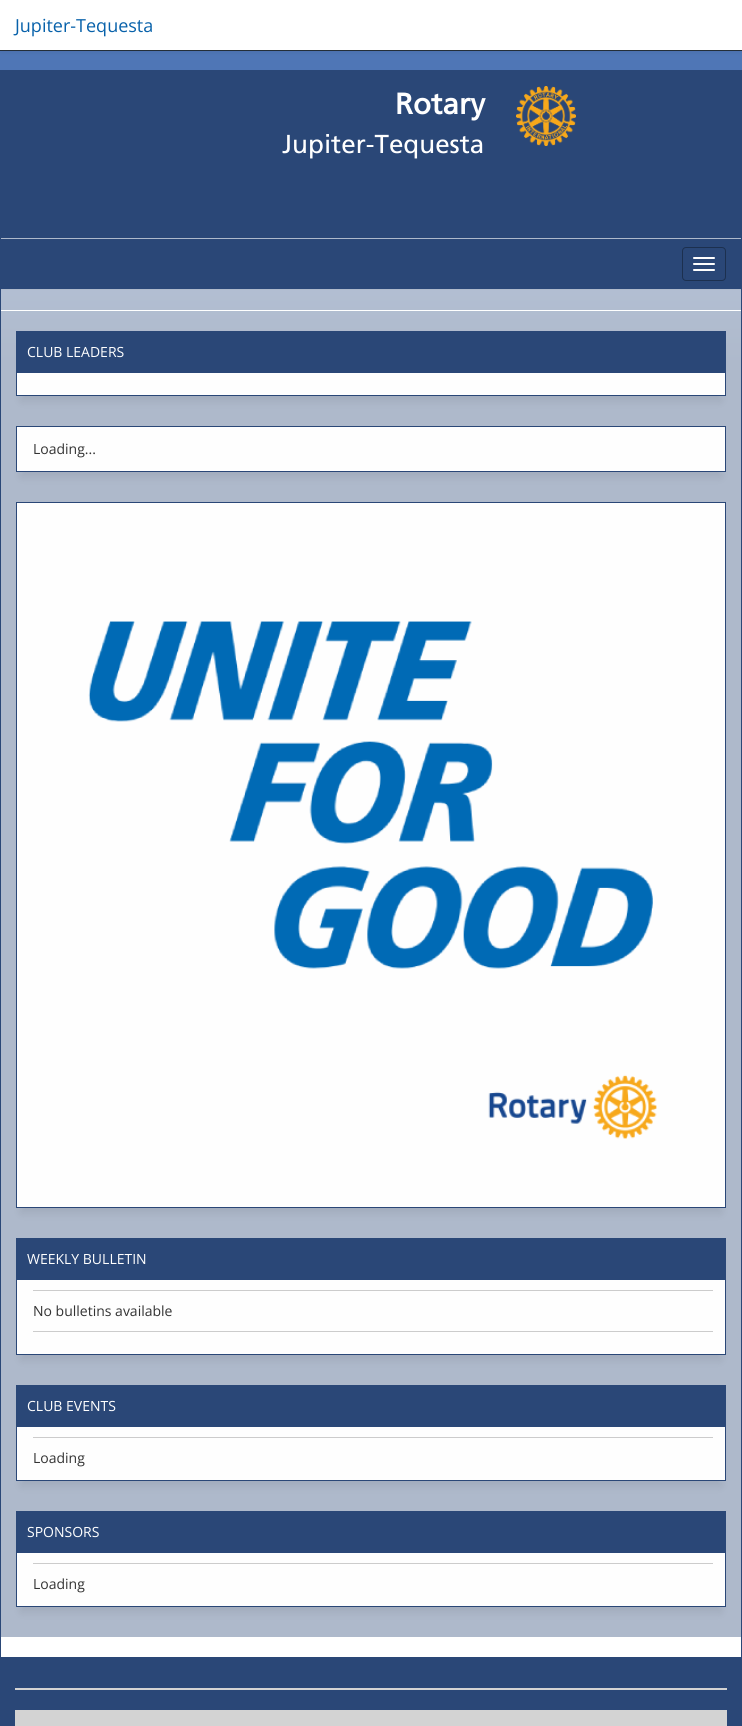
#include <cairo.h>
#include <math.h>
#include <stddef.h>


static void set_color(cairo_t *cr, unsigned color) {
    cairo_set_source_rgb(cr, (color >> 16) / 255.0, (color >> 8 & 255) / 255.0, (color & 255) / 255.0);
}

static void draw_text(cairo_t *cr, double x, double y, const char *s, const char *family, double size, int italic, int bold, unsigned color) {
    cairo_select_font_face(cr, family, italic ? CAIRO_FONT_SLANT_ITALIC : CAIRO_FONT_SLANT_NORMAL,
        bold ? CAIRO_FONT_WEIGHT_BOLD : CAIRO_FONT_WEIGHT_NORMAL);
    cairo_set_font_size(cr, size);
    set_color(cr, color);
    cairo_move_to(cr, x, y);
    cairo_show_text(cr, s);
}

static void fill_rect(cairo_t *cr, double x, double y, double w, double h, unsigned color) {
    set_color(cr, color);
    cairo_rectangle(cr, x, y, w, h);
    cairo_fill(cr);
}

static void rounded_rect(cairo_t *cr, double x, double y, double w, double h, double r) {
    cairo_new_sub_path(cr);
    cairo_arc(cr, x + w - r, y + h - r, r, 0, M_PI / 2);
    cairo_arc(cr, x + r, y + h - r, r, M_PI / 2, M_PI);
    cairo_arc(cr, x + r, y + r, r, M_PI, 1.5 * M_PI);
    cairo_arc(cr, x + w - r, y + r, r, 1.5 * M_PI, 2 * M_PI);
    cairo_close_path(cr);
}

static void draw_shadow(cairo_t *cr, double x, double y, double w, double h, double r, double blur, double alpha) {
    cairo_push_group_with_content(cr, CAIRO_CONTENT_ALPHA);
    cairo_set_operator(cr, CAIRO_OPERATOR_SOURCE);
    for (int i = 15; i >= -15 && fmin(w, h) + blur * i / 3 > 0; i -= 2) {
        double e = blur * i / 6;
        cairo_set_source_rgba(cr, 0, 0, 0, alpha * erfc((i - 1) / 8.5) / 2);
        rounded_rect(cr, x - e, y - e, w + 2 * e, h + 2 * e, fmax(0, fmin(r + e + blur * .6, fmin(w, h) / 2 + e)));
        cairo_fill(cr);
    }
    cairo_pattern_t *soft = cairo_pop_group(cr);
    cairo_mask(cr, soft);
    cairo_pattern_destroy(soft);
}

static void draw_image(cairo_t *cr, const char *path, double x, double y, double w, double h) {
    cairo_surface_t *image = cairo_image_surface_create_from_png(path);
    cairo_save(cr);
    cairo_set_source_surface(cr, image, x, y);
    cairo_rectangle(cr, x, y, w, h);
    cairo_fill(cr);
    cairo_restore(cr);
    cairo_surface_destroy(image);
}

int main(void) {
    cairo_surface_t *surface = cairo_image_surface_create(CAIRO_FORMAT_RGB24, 742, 1726);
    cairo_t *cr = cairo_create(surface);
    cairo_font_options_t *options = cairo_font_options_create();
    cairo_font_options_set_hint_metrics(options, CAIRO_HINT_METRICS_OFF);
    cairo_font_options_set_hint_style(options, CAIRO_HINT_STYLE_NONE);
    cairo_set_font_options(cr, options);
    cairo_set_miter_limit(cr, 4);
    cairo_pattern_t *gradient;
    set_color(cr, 0xFFFFFF);
    cairo_paint(cr);
    gradient = cairo_pattern_create_linear(371, 0, 371, 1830);
    cairo_pattern_add_color_stop_rgba(gradient, 0.06, 0.31, 0.463, 0.714, 1);
    cairo_pattern_add_color_stop_rgba(gradient, 0.2, 0.165, 0.278, 0.467, 1);
    cairo_set_source(cr, gradient);
    cairo_pattern_destroy(gradient);
    cairo_rectangle(cr, 0, 51, 742, 1675);
    cairo_fill(cr);
    gradient = cairo_pattern_create_linear(371, 0, 371, 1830);
    cairo_pattern_add_color_stop_rgba(gradient, 0.06, 0.737, 0.796, 0.89, 1);
    cairo_pattern_add_color_stop_rgba(gradient, 0.2, 0.682, 0.725, 0.796, 1);
    cairo_set_source(cr, gradient);
    cairo_pattern_destroy(gradient);
    cairo_rectangle(cr, 1, 290, 740, 1347);
    cairo_fill(cr);
    set_color(cr, 0x000000);
    draw_shadow(cr, 0, 1, 742, 51, 0, 2.5, 0.07);
    fill_rect(cr, 0, 0, 742, 50, 0xFFFFFF);
    fill_rect(cr, 0, 50, 742, 1, 0x242E38);
    draw_text(cr, 15, 32, "Jupiter-Tequesta", "Open Sans", 18, 0, 0, 0x0761AA);
    cairo_rectangle(cr, 0.5, 70.5, 741, 1587);
    set_color(cr, 0x2A4777);
    cairo_set_line_width(cr, 1);
    cairo_stroke(cr);
    fill_rect(cr, 1, 71, 740, 167, 0x2A4777);
    draw_text(cr, 395, 114, "Rotary", "Frutiger", 29.5, 0, 1, 0xFFFFFF);
    draw_text(cr, 282, 153, "Jupiter-Tequesta", "Frutiger", 26, 0, 0, 0xFFFFFF);
    draw_image(cr, "assets/img1.png", 516, 86, 60, 60);
    fill_rect(cr, 1, 239, 740, 50, 0x2A4777);
    fill_rect(cr, 1, 238, 740, 1, 0xAEB9CB);
    fill_rect(cr, 1, 289, 740, 1, 0xAEB9CB);
    rounded_rect(cr, 682.5, 247.5, 43, 33, 3.5);
    set_color(cr, 0x1C304F);
    cairo_stroke(cr);
    set_color(cr, 0xFFFFFF);
    rounded_rect(cr, 693, 257, 22, 2, 1);
    cairo_fill(cr);
    rounded_rect(cr, 693, 263, 22, 2, 1);
    cairo_fill(cr);
    rounded_rect(cr, 693, 269, 22, 2, 1);
    cairo_fill(cr);
    fill_rect(cr, 1, 310, 740, 1, 0xFFFFFF);
    set_color(cr, 0x000000);
    draw_shadow(cr, 21, 346, 700, 55, 0, 5, 0.08);
    fill_rect(cr, 17, 373, 708, 22, 0xFEFEFE);
    cairo_rectangle(cr, 16.5, 331.5, 709, 64);
    set_color(cr, 0x2A4777);
    cairo_stroke(cr);
    fill_rect(cr, 17, 332, 708, 41, 0x2A4777);
    draw_text(cr, 27, 357, "CLUB LEADERS", "Open Sans", 14, 0, 0, 0xFFFFFF);
    set_color(cr, 0x000000);
    draw_shadow(cr, 21, 441, 700, 36, 0, 5, 0.08);
    set_color(cr, 0xFEFEFE);
    cairo_rectangle(cr, 16.5, 426.5, 709, 45);
    cairo_fill_preserve(cr);
    set_color(cr, 0x2A4777);
    cairo_stroke(cr);
    draw_text(cr, 33, 454, "Loading...", "Open Sans", 14, 0, 0, 0x333333);
    set_color(cr, 0x000000);
    draw_shadow(cr, 21, 517, 700, 696, 0, 5, 0.08);
    set_color(cr, 0xFEFEFE);
    cairo_rectangle(cr, 16.5, 502.5, 709, 705);
    cairo_fill_preserve(cr);
    set_color(cr, 0x2A4777);
    cairo_stroke(cr);
    draw_image(cr, "assets/img2.png", 88, 621, 569, 518);
    set_color(cr, 0x000000);
    draw_shadow(cr, 21, 1253, 700, 107, 0, 5, 0.08);
    fill_rect(cr, 17, 1280, 708, 74, 0xFEFEFE);
    cairo_rectangle(cr, 16.5, 1238.5, 709, 116);
    set_color(cr, 0x2A4777);
    cairo_stroke(cr);
    fill_rect(cr, 17, 1239, 708, 41, 0x2A4777);
    draw_text(cr, 27, 1264, "WEEKLY BULLETIN", "Open Sans", 14, 0, 0, 0xFFFFFF);
    fill_rect(cr, 33, 1290, 680, 1, 0xCCCCCC);
    draw_text(cr, 33, 1316, "No bulletins available", "Open Sans", 14, 0, 0, 0x333333);
    fill_rect(cr, 33, 1331, 680, 1, 0xCCCCCC);
    set_color(cr, 0x000000);
    draw_shadow(cr, 21, 1400, 700, 86, 0, 5, 0.08);
    fill_rect(cr, 17, 1427, 708, 53, 0xFEFEFE);
    cairo_rectangle(cr, 16.5, 1385.5, 709, 95);
    set_color(cr, 0x2A4777);
    cairo_stroke(cr);
    fill_rect(cr, 17, 1386, 708, 41, 0x2A4777);
    draw_text(cr, 27, 1411, "CLUB EVENTS", "Open Sans", 14, 0, 0, 0xFFFFFF);
    fill_rect(cr, 33, 1437, 680, 1, 0xCCCCCC);
    draw_text(cr, 33, 1463, "Loading", "Open Sans", 14, 0, 0, 0x333333);
    set_color(cr, 0x000000);
    draw_shadow(cr, 21, 1526, 700, 86, 0, 5, 0.08);
    fill_rect(cr, 17, 1553, 708, 53, 0xFEFEFE);
    cairo_rectangle(cr, 16.5, 1511.5, 709, 95);
    set_color(cr, 0x2A4777);
    cairo_stroke(cr);
    fill_rect(cr, 17, 1512, 708, 41, 0x2A4777);
    draw_text(cr, 27, 1537, "SPONSORS", "Open Sans", 14, 0, 0, 0xFFFFFF);
    fill_rect(cr, 33, 1563, 680, 1, 0xCCCCCC);
    draw_text(cr, 33, 1589, "Loading", "Open Sans", 14, 0, 0, 0x333333);
    fill_rect(cr, 1, 1637, 740, 20, 0xFFFFFF);
    fill_rect(cr, 15, 1688, 712, 2, 0xD3D3D3);
    fill_rect(cr, 15, 1710, 712, 16, 0xD3D3D3);
    cairo_surface_write_to_png(surface, "output.png");
    cairo_font_options_destroy(options);
    cairo_destroy(cr);
    cairo_surface_destroy(surface);
    return 0;
}
